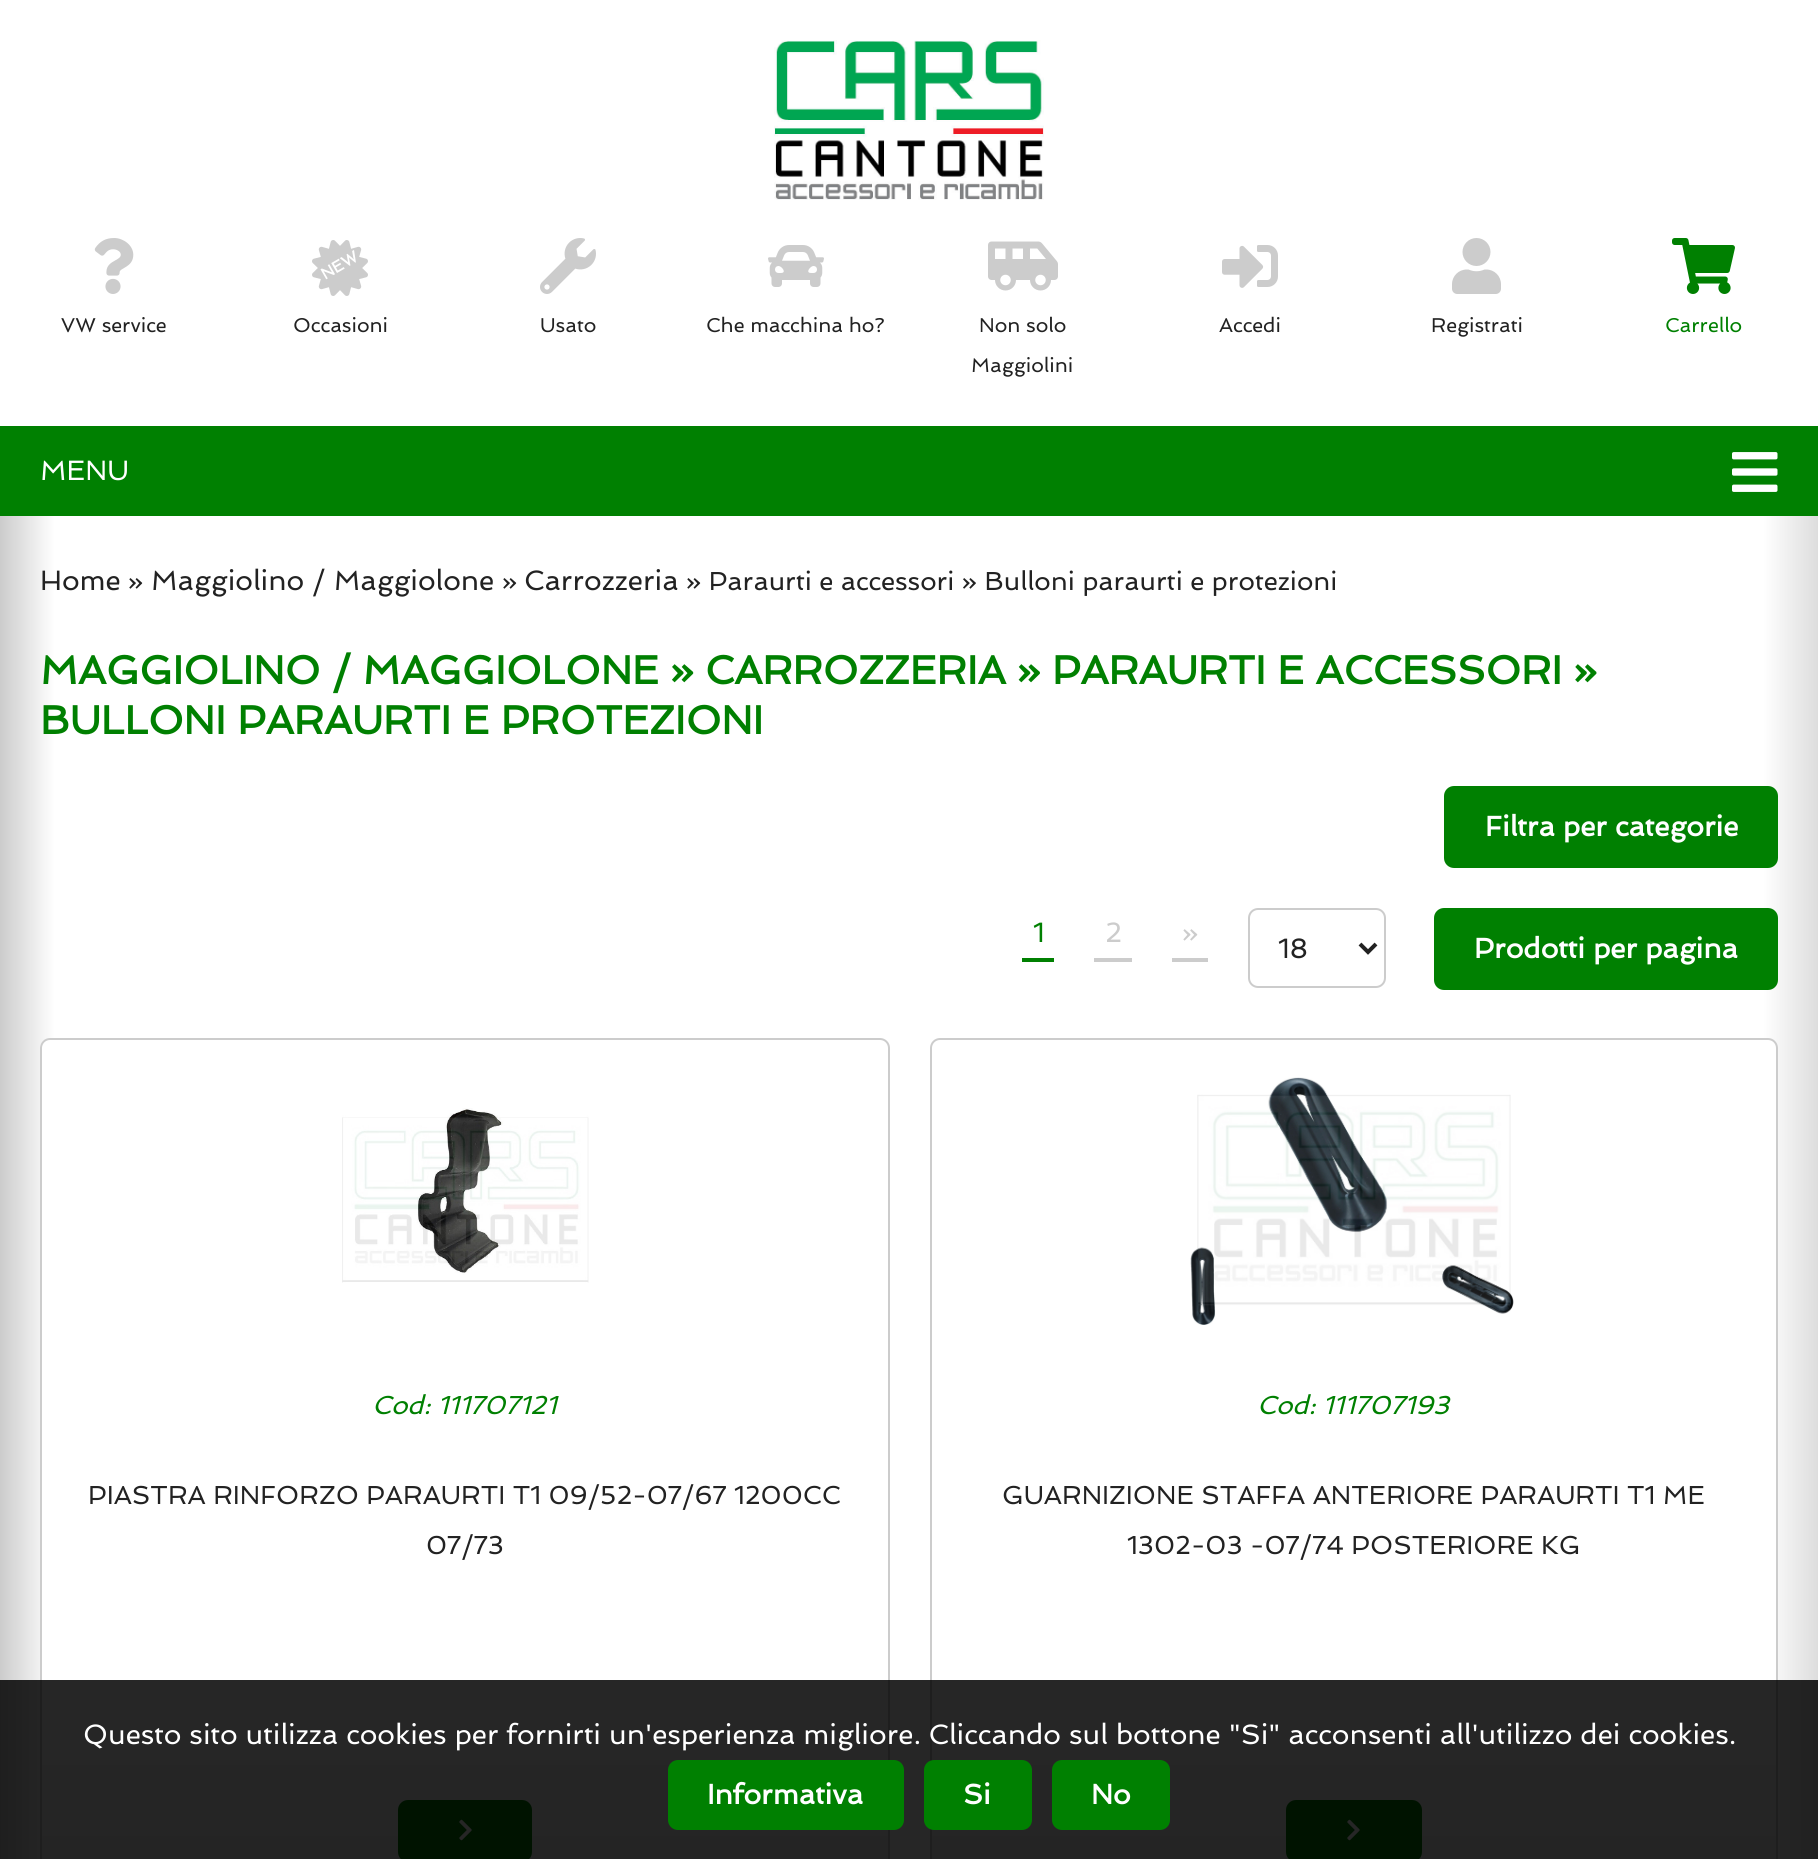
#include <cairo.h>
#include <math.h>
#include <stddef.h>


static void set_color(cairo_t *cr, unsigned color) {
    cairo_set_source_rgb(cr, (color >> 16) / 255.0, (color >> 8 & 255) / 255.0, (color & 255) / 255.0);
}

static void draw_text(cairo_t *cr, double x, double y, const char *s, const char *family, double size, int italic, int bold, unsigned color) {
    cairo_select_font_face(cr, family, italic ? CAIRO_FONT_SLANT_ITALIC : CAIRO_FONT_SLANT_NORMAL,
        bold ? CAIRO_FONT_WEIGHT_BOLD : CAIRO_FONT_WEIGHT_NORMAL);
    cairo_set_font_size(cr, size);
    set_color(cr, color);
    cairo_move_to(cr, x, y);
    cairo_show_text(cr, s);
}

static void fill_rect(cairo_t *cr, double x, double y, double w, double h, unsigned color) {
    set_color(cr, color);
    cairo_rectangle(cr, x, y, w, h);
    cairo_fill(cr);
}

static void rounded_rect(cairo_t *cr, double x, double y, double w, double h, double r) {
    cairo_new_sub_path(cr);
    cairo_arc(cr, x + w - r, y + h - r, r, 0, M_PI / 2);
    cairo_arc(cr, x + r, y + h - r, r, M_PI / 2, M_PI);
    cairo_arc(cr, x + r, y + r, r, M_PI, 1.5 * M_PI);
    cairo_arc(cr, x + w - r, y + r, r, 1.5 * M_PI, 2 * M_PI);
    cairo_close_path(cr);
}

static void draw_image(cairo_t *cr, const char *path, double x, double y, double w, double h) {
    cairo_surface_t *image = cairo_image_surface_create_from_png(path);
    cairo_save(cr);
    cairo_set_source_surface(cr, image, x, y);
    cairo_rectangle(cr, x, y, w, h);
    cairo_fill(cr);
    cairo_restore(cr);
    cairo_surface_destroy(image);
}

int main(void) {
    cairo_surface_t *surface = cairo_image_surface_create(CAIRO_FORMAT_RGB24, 1818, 1859);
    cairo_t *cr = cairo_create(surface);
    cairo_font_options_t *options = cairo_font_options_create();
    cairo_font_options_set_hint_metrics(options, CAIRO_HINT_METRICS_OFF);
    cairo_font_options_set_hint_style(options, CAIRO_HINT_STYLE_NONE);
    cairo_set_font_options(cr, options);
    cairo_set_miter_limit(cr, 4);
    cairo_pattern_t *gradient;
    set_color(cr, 0xFFFFFF);
    cairo_paint(cr);
    draw_image(cr, "assets/img1.png", 774, 40, 270, 160);
    draw_image(cr, "assets/img2.png", 94, 238, 40, 56);
    draw_text(cr, 61, 332, "VW service", "Spinnaker", 20, 0, 0, 0x222222);
    draw_image(cr, "assets/img3.png", 312, 240, 56, 56);
    cairo_save(cr);
    cairo_translate(cr, 325, 280);
    cairo_rotate(cr, -30 * M_PI / 180);
    draw_text(cr, 0, 0, "NEW", "Spinnaker", 16, 0, 1, 0xFFFFFF);
    cairo_restore(cr);
    draw_text(cr, 293, 332, "Occasioni", "Spinnaker", 20, 0, 0, 0x222222);
    draw_image(cr, "assets/img4.png", 540, 238, 56, 56);
    draw_text(cr, 540, 332, "Usato", "Spinnaker", 20, 0, 0, 0x222222);
    draw_image(cr, "assets/img5.png", 768, 245, 56, 42);
    draw_text(cr, 706, 332, "Che macchina ho?", "Spinnaker", 20, 0, 0, 0x222222);
    draw_image(cr, "assets/img6.png", 988, 241, 70, 50);
    draw_text(cr, 979, 332, "Non solo", "Spinnaker", 20, 0, 0, 0x222222);
    draw_text(cr, 971, 372, "Maggiolini", "Spinnaker", 20, 0, 0, 0x222222);
    draw_image(cr, "assets/img7.png", 1222, 245, 56, 43);
    draw_text(cr, 1219, 332, "Accedi", "Spinnaker", 20, 0, 0, 0x222222);
    draw_image(cr, "assets/img8.png", 1452, 238, 49, 56);
    draw_text(cr, 1431, 332, "Registrati", "Spinnaker", 20, 0, 0, 0x222222);
    draw_image(cr, "assets/img9.png", 1672, 238, 63, 56);
    draw_text(cr, 1665, 332, "Carrello", "Spinnaker", 20, 0, 0, 0x008001);
    fill_rect(cr, 0, 426, 1818, 90, 0x008001);
    draw_text(cr, 40, 480, "MENU", "Spinnaker", 28, 0, 0, 0xFFFFFF);
    draw_image(cr, "assets/img10.png", 1732, 452, 46, 40);
    gradient = cairo_pattern_create_linear(0, 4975, 1818, 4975);
    cairo_pattern_add_color_stop_rgba(gradient, 0, 0.8, 0.8, 0.8, 1);
    cairo_pattern_add_color_stop_rgba(gradient, 0.03, 1, 1, 1, 1);
    cairo_pattern_add_color_stop_rgba(gradient, 0.97, 1, 1, 1, 1);
    cairo_pattern_add_color_stop_rgba(gradient, 1, 0.867, 0.867, 0.867, 1);
    cairo_set_source(cr, gradient);
    cairo_pattern_destroy(gradient);
    cairo_rectangle(cr, 0, 516, 1818, 1343);
    cairo_fill(cr);
    cairo_save(cr);
    rounded_rect(cr, 40, 1038, 850, 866, 10);
    cairo_clip(cr);
    gradient = cairo_pattern_create_linear(465, 1040, 465, 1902);
    cairo_pattern_add_color_stop_rgba(gradient, 0, 1, 1, 1, 1);
    cairo_pattern_add_color_stop_rgba(gradient, 0.8, 1, 1, 1, 1);
    cairo_pattern_add_color_stop_rgba(gradient, 1, 0.933, 0.933, 0.933, 1);
    cairo_set_source(cr, gradient);
    cairo_pattern_destroy(gradient);
    cairo_rectangle(cr, 40, 1040, 850, 819);
    cairo_fill(cr);
    cairo_restore(cr);
    rounded_rect(cr, 41, 1039, 848, 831, 9);
    set_color(cr, 0xCCCCCC);
    cairo_stroke(cr);
    set_color(cr, 0x008001);
    rounded_rect(cr, 398, 1800, 134, 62, 10);
    cairo_fill(cr);
    draw_image(cr, "assets/img12.png", 459, 1819, 13, 22);
    cairo_save(cr);
    rounded_rect(cr, 930, 1038, 848, 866, 10);
    cairo_clip(cr);
    gradient = cairo_pattern_create_linear(1354, 1040, 1354, 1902);
    cairo_pattern_add_color_stop_rgba(gradient, 0, 1, 1, 1, 1);
    cairo_pattern_add_color_stop_rgba(gradient, 0.8, 1, 1, 1, 1);
    cairo_pattern_add_color_stop_rgba(gradient, 1, 0.933, 0.933, 0.933, 1);
    cairo_set_source(cr, gradient);
    cairo_pattern_destroy(gradient);
    cairo_rectangle(cr, 930, 1040, 848, 819);
    cairo_fill(cr);
    cairo_restore(cr);
    rounded_rect(cr, 931, 1039, 846, 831, 9);
    set_color(cr, 0xCCCCCC);
    cairo_stroke(cr);
    set_color(cr, 0x008001);
    rounded_rect(cr, 1286, 1800, 136, 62, 10);
    cairo_fill(cr);
    draw_image(cr, "assets/img12.png", 1347, 1819, 13, 22);
    cairo_set_source_rgba(cr, 0, 0, 0, 0.85);
    cairo_rectangle(cr, 0, 1680, 1818, 179);
    cairo_fill(cr);
    draw_text(cr, 83, 1744, "Questo sito utilizza cookies per fornirti un'esperienza migliore. Cliccando sul bottone \"Si\" acconsenti all'utilizzo dei cookies.", "Spinnaker", 28, 0, 0, 0xFFFFFF);
    set_color(cr, 0x008001);
    rounded_rect(cr, 668, 1760, 236, 70, 10);
    cairo_fill(cr);
    draw_text(cr, 707, 1804, "Informativa", "Spinnaker", 28, 0, 1, 0xFFFFFF);
    set_color(cr, 0x008001);
    rounded_rect(cr, 924, 1760, 108, 70, 10);
    cairo_fill(cr);
    draw_text(cr, 963, 1804, "Si", "Spinnaker", 28, 0, 1, 0xFFFFFF);
    set_color(cr, 0x008001);
    rounded_rect(cr, 1052, 1760, 118, 70, 10);
    cairo_fill(cr);
    draw_text(cr, 1091, 1804, "No", "Spinnaker", 28, 0, 1, 0xFFFFFF);
    draw_text(cr, 40, 590, "Home", "Spinnaker", 28, 0, 0, 0x222222);
    draw_text(cr, 128, 590, "»", "Spinnaker", 26, 0, 0, 0x222222);
    draw_text(cr, 151, 590, "Maggiolino / Maggiolone", "Spinnaker", 28, 0, 0, 0x222222);
    draw_text(cr, 502, 590, "»", "Spinnaker", 26, 0, 0, 0x222222);
    draw_text(cr, 524, 590, "Carrozzeria", "Spinnaker", 28, 0, 0, 0x222222);
    draw_text(cr, 686, 590, "» Paraurti e accessori » Bulloni paraurti e protezioni", "Spinnaker", 26, 0, 0, 0x222222);
    draw_text(cr, 40, 684, "MAGGIOLINO / MAGGIOLONE » CARROZZERIA » PARAURTI E ACCESSORI »", "Spinnaker", 40, 0, 1, 0x008001);
    draw_text(cr, 40, 734, "BULLONI PARAURTI E PROTEZIONI", "Spinnaker", 40, 0, 1, 0x008001);
    rounded_rect(cr, 1444, 786, 334, 82, 10);
    cairo_fill(cr);
    draw_text(cr, 1485, 836, "Filtra per categorie", "Spinnaker", 28, 0, 1, 0xFFFFFF);
    draw_text(cr, 1033, 942, "1", "Spinnaker", 28, 0, 0, 0x008001);
    fill_rect(cr, 1022, 958, 32, 4, 0x008001);
    draw_text(cr, 1105, 942, "2", "Spinnaker", 28, 0, 0, 0xCCCCCC);
    fill_rect(cr, 1094, 958, 38, 4, 0xCCCCCC);
    draw_text(cr, 1182, 942, "»", "Spinnaker", 28, 0, 0, 0xCCCCCC);
    fill_rect(cr, 1172, 958, 36, 4, 0xCCCCCC);
    rounded_rect(cr, 1249, 909, 136, 78, 9);
    cairo_stroke(cr);
    cairo_new_path(cr);
    cairo_move_to(cr, 1360, 944);
    cairo_line_to(cr, 1368, 952);
    cairo_line_to(cr, 1376, 944);
    set_color(cr, 0x222222);
    cairo_set_line_width(cr, 4);
    cairo_stroke(cr);
    draw_text(cr, 1278, 958, "18", "Spinnaker", 28, 0, 0, 0x222222);
    set_color(cr, 0x008001);
    rounded_rect(cr, 1434, 908, 344, 82, 10);
    cairo_fill(cr);
    draw_text(cr, 1474, 958, "Prodotti per pagina", "Spinnaker", 28, 0, 1, 0xFFFFFF);
    draw_image(cr, "assets/img11.png", 342, 1108, 247, 175);
    draw_text(cr, 372, 1414, "Cod: 111707121", "Spinnaker", 26, 1, 0, 0x008001);
    draw_text(cr, 88, 1504, "PIASTRA RINFORZO PARAURTI T1 09/52-07/67 1200CC", "Spinnaker", 26, 0, 0, 0x222222);
    draw_text(cr, 426, 1554, "07/73", "Spinnaker", 26, 0, 0, 0x222222);
    draw_image(cr, "assets/img13.png", 1190, 1077, 324, 248);
    draw_text(cr, 1257, 1414, "Cod: 111707193", "Spinnaker", 26, 1, 0, 0x008001);
    draw_text(cr, 1002, 1504, "GUARNIZIONE STAFFA ANTERIORE PARAURTI T1 ME", "Spinnaker", 26, 0, 0, 0x222222);
    draw_text(cr, 1127, 1554, "1302-03 -07/74 POSTERIORE KG", "Spinnaker", 26, 0, 0, 0x222222);
    cairo_surface_write_to_png(surface, "output.png");
    cairo_font_options_destroy(options);
    cairo_destroy(cr);
    cairo_surface_destroy(surface);
    return 0;
}
